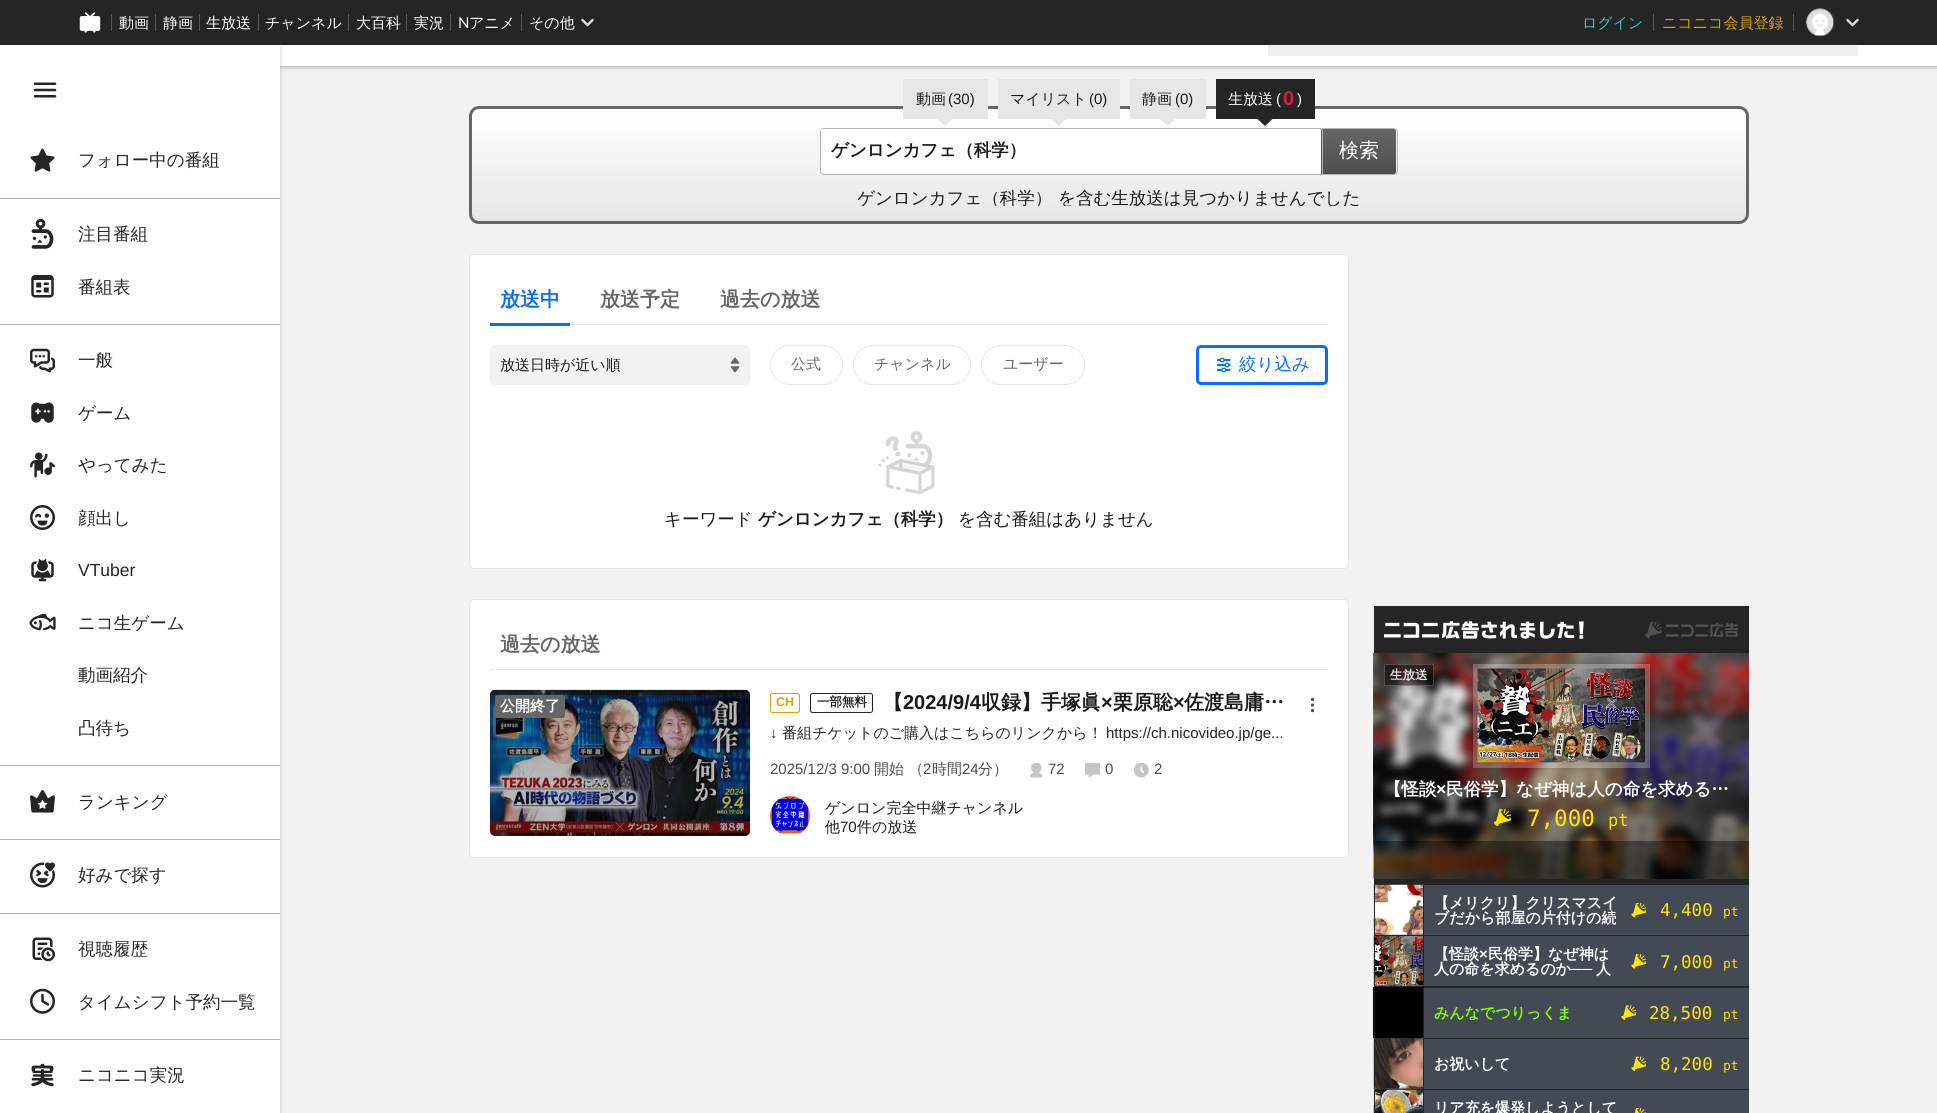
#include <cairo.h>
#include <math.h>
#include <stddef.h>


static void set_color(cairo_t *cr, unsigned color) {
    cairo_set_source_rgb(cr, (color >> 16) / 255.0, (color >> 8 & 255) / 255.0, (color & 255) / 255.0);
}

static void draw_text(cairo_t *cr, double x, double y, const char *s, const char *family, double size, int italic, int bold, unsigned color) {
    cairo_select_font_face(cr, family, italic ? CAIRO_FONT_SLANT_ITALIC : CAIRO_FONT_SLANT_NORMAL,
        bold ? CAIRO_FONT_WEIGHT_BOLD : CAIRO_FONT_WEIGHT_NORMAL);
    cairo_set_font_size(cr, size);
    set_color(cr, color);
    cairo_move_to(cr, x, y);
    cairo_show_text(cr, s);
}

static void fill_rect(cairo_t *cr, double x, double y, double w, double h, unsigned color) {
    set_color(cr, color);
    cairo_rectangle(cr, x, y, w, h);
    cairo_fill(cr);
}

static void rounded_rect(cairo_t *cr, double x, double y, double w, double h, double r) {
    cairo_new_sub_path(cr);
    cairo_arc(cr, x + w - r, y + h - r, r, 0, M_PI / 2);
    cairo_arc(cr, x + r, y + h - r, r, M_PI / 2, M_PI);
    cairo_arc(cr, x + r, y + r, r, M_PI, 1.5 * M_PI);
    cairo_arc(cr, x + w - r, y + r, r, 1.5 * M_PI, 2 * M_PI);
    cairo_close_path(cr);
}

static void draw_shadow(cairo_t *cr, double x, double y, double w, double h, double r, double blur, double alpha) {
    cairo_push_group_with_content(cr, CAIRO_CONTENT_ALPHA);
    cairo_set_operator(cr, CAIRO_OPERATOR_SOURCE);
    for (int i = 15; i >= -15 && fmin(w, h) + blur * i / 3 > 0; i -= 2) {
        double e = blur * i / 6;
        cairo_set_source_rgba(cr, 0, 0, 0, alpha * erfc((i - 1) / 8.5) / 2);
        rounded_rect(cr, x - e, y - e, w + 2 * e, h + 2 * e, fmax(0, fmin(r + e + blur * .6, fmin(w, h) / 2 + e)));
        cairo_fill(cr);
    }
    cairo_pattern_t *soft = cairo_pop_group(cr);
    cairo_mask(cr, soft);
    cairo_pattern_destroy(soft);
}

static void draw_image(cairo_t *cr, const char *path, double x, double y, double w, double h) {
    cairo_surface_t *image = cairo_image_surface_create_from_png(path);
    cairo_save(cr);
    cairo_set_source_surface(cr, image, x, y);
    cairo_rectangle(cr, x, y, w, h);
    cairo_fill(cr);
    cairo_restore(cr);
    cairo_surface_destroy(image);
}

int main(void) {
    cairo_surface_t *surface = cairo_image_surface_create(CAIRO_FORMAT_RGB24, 1937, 1113);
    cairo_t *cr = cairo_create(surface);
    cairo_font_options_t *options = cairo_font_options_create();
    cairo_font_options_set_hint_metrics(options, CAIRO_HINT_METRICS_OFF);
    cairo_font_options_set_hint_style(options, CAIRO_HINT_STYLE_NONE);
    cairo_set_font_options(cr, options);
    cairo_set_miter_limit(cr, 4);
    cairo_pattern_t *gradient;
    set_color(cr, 0xF2F2F2);
    cairo_paint(cr);
    set_color(cr, 0x1A1A1A);
    draw_shadow(cr, 280, -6, 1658, 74, 0, 2, 0.25);
    fill_rect(cr, 280, 45, 1657, 21, 0xFFFFFF);
    set_color(cr, 0x1A1A1A);
    draw_shadow(cr, 0, 46, 280, 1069, 0, 2, 0.25);
    fill_rect(cr, 0, 0, 1937, 45, 0x252525);
    draw_image(cr, "assets/img1.png", 79, 12, 22, 21);
    fill_rect(cr, 111, 14, 1, 17, 0x555555);
    draw_text(cr, 119, 28, "動画", "WenQuanYi Zen Hei Medium", 15, 0, 0, 0xFFFFFF);
    fill_rect(cr, 155, 14, 1, 17, 0x555555);
    draw_text(cr, 163, 28, "静画", "WenQuanYi Zen Hei Medium", 15, 0, 0, 0xFFFFFF);
    fill_rect(cr, 199, 14, 1, 17, 0x555555);
    draw_text(cr, 206, 28, "生放送", "WenQuanYi Zen Hei Medium", 15, 0, 0, 0xFFFFFF);
    fill_rect(cr, 258, 14, 1, 17, 0x555555);
    draw_text(cr, 265, 28, "チャンネル", "WenQuanYi Zen Hei Medium", 15, 0, 0, 0xFFFFFF);
    fill_rect(cr, 348, 14, 1, 17, 0x555555);
    draw_text(cr, 356, 28, "大百科", "WenQuanYi Zen Hei Medium", 15, 0, 0, 0xFFFFFF);
    fill_rect(cr, 406, 14, 1, 17, 0x555555);
    draw_text(cr, 414, 28, "実況", "WenQuanYi Zen Hei Medium", 15, 0, 0, 0xFFFFFF);
    fill_rect(cr, 450, 14, 1, 17, 0x555555);
    draw_text(cr, 458, 28, "N", "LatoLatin", 15, 0, 0, 0xFFFFFF);
    draw_text(cr, 469, 28, "アニメ", "WenQuanYi Zen Hei Medium", 15, 0, 0, 0xFFFFFF);
    fill_rect(cr, 521, 14, 1, 17, 0x555555);
    draw_text(cr, 529, 28, "その他", "WenQuanYi Zen Hei Medium", 15, 0, 0, 0xFFFFFF);
    draw_image(cr, "assets/img2.png", 581, 18, 13, 9);
    draw_text(cr, 1582, 28, "ログイン", "WenQuanYi Zen Hei Medium", 15, 0, 0, 0x39C4C1);
    fill_rect(cr, 1653, 14, 1, 17, 0x555555);
    draw_text(cr, 1662, 28, "ニコニコ会員登録", "WenQuanYi Zen Hei Medium", 15, 0, 0, 0xD9A300);
    fill_rect(cr, 1793, 14, 1, 17, 0x555555);
    draw_image(cr, "assets/img3.png", 1806, 8, 29, 29);
    draw_image(cr, "assets/img2.png", 1846, 18, 13, 9);
    fill_rect(cr, 0, 45, 280, 1068, 0xFFFFFF);
    draw_image(cr, "assets/img4.png", 33, 82, 24, 16);
    draw_image(cr, "assets/img5.png", 30, 148, 25, 24);
    draw_text(cr, 78, 166, "フォロー中の番組", "WenQuanYi Zen Hei Medium", 17.5, 0, 0, 0x252525);
    fill_rect(cr, 0, 198, 280, 1, 0xB3B3B3);
    draw_image(cr, "assets/img6.png", 31, 219, 23, 30);
    draw_text(cr, 78, 240, "注目番組", "WenQuanYi Zen Hei Medium", 17.5, 0, 0, 0x252525);
    draw_image(cr, "assets/img7.png", 31, 275, 23, 23);
    draw_text(cr, 78, 293, "番組表", "WenQuanYi Zen Hei Medium", 17.5, 0, 0, 0x252525);
    fill_rect(cr, 0, 324, 280, 1, 0xB3B3B3);
    draw_image(cr, "assets/img8.png", 30, 348, 25, 25);
    draw_text(cr, 78, 366, "一般", "WenQuanYi Zen Hei Medium", 17.5, 0, 0, 0x252525);
    draw_image(cr, "assets/img9.png", 31, 402, 23, 21);
    draw_text(cr, 78, 419, "ゲーム", "WenQuanYi Zen Hei Medium", 17.5, 0, 0, 0x252525);
    draw_image(cr, "assets/img10.png", 30, 452, 25, 26);
    draw_text(cr, 78, 471, "やってみた", "WenQuanYi Zen Hei Medium", 17.5, 0, 0, 0x252525);
    draw_image(cr, "assets/img11.png", 30, 505, 25, 25);
    draw_text(cr, 78, 524, "顔出し", "WenQuanYi Zen Hei Medium", 17.5, 0, 0, 0x252525);
    draw_image(cr, "assets/img12.png", 31, 558, 23, 24);
    draw_text(cr, 78, 576, "VTuber", "Liberation Sans", 17.5, 0, 0, 0x252525);
    draw_image(cr, "assets/img13.png", 29, 613, 27, 18);
    draw_text(cr, 78, 629, "ニコ生ゲーム", "WenQuanYi Zen Hei Medium", 17.5, 0, 0, 0x252525);
    draw_text(cr, 78, 681, "動画紹介", "WenQuanYi Zen Hei Medium", 17.5, 0, 0, 0x252525);
    draw_text(cr, 78, 734, "凸待ち", "WenQuanYi Zen Hei Medium", 17.5, 0, 0, 0x252525);
    fill_rect(cr, 0, 765, 280, 1, 0xB3B3B3);
    draw_image(cr, "assets/img14.png", 30, 790, 25, 23);
    draw_text(cr, 78, 808, "ランキング", "WenQuanYi Zen Hei Medium", 17.5, 0, 0, 0x252525);
    fill_rect(cr, 0, 839, 280, 1, 0xB3B3B3);
    draw_image(cr, "assets/img15.png", 30, 862, 25, 26);
    draw_text(cr, 78, 881, "好みで探す", "WenQuanYi Zen Hei Medium", 17.5, 0, 0, 0x252525);
    fill_rect(cr, 0, 913, 280, 1, 0xB3B3B3);
    draw_image(cr, "assets/img16.png", 32, 937, 23, 25);
    draw_text(cr, 78, 955, "視聴履歴", "WenQuanYi Zen Hei Medium", 17.5, 0, 0, 0x252525);
    draw_image(cr, "assets/img17.png", 30, 988, 25, 26);
    draw_text(cr, 78, 1008, "タイムシフト予約一覧", "WenQuanYi Zen Hei Medium", 17.5, 0, 0, 0x252525);
    fill_rect(cr, 0, 1039, 280, 1, 0xB3B3B3);
    draw_image(cr, "assets/img18.png", 31, 1063, 23, 24);
    draw_text(cr, 78, 1081, "ニコニコ実況", "WenQuanYi Zen Hei Medium", 17.5, 0, 0, 0x252525);
    fill_rect(cr, 1268, 45, 590, 11, 0xEFEFEF);
    cairo_save(cr);
    rounded_rect(cr, 469, 106, 1280, 118, 10);
    cairo_clip(cr);
    gradient = cairo_pattern_create_linear(1109, 109, 1109, 221);
    cairo_pattern_add_color_stop_rgba(gradient, 0, 1, 1, 1, 1);
    cairo_pattern_add_color_stop_rgba(gradient, 1, 0.902, 0.902, 0.902, 1);
    cairo_set_source(cr, gradient);
    cairo_pattern_destroy(gradient);
    cairo_rectangle(cr, 469, 109, 1280, 112);
    cairo_fill(cr);
    cairo_restore(cr);
    rounded_rect(cr, 470.5, 107.5, 1277, 115, 8.5);
    set_color(cr, 0x666666);
    cairo_set_line_width(cr, 3);
    cairo_stroke(cr);
    fill_rect(cr, 903, 79, 85, 40, 0xE6E6E6);
    draw_text(cr, 916, 104, "動画", "WenQuanYi Zen Hei Medium", 15, 0, 0, 0x1A1A1A);
    draw_text(cr, 948, 104, "(30)", "Liberation Sans", 15, 0, 0, 0x1A1A1A);
    set_color(cr, 0xE6E6E6);
    cairo_new_path(cr);
    cairo_move_to(cr, 937.5, 119);
    cairo_line_to(cr, 952.5, 119);
    cairo_line_to(cr, 945, 126);
    cairo_close_path(cr);
    cairo_fill(cr);
    fill_rect(cr, 998, 79, 122, 40, 0xE6E6E6);
    draw_text(cr, 1010, 104, "マイリスト", "WenQuanYi Zen Hei Medium", 15, 0, 0, 0x1A1A1A);
    draw_text(cr, 1089, 104, "(0)", "Liberation Sans", 15, 0, 0, 0x1A1A1A);
    set_color(cr, 0xE6E6E6);
    cairo_new_path(cr);
    cairo_move_to(cr, 1051, 119);
    cairo_line_to(cr, 1066, 119);
    cairo_line_to(cr, 1059, 126);
    cairo_close_path(cr);
    cairo_fill(cr);
    fill_rect(cr, 1130, 79, 76, 40, 0xE6E6E6);
    draw_text(cr, 1142, 104, "静画", "WenQuanYi Zen Hei Medium", 15, 0, 0, 0x1A1A1A);
    draw_text(cr, 1175, 104, "(0)", "Liberation Sans", 15, 0, 0, 0x1A1A1A);
    set_color(cr, 0xE6E6E6);
    cairo_new_path(cr);
    cairo_move_to(cr, 1160, 119);
    cairo_line_to(cr, 1175, 119);
    cairo_line_to(cr, 1167.5, 126);
    cairo_close_path(cr);
    cairo_fill(cr);
    fill_rect(cr, 1216, 79, 99, 40, 0x252525);
    draw_text(cr, 1228, 104, "生放送", "WenQuanYi Zen Hei Medium", 15, 0, 0, 0xFFFFFF);
    draw_text(cr, 1276, 104, "(", "Liberation Sans", 15, 0, 0, 0xFFFFFF);
    draw_text(cr, 1283, 105, "0", "Liberation Sans", 20, 0, 1, 0xD71D43);
    draw_text(cr, 1297, 104, ")", "Liberation Sans", 15, 0, 0, 0xFFFFFF);
    set_color(cr, 0x252525);
    cairo_new_path(cr);
    cairo_move_to(cr, 1257.5, 119);
    cairo_line_to(cr, 1272.5, 119);
    cairo_line_to(cr, 1265, 126);
    cairo_close_path(cr);
    cairo_fill(cr);
    cairo_new_path(cr);
    cairo_move_to(cr, 1320.5, 128.5);
    cairo_line_to(cr, 1394, 128.5);
    cairo_curve_to(cr, 1396, 128.5, 1397.5, 130, 1397.5, 132);
    cairo_line_to(cr, 1397.5, 171);
    cairo_curve_to(cr, 1397.5, 173, 1396, 174.5, 1394, 174.5);
    cairo_line_to(cr, 1320.5, 174.5);
    cairo_close_path(cr);
    set_color(cr, 0xB3B3B3);
    cairo_set_line_width(cr, 1);
    cairo_stroke(cr);
    gradient = cairo_pattern_create_linear(1359, 129, 1359, 174);
    cairo_pattern_add_color_stop_rgba(gradient, 0, 0.4, 0.4, 0.4, 1);
    cairo_pattern_add_color_stop_rgba(gradient, 1, 0.302, 0.302, 0.302, 1);
    cairo_set_source(cr, gradient);
    cairo_pattern_destroy(gradient);
    cairo_new_path(cr);
    cairo_move_to(cr, 1321, 129);
    cairo_line_to(cr, 1393.5, 129);
    cairo_curve_to(cr, 1395, 129, 1396, 130, 1396, 131.5);
    cairo_line_to(cr, 1396, 171.5);
    cairo_curve_to(cr, 1396, 173, 1395, 174, 1393.5, 174);
    cairo_line_to(cr, 1321, 174);
    cairo_close_path(cr);
    cairo_fill(cr);
    cairo_new_path(cr);
    cairo_move_to(cr, 824, 128.5);
    cairo_line_to(cr, 1322.5, 128.5);
    cairo_line_to(cr, 1322.5, 174.5);
    cairo_line_to(cr, 824, 174.5);
    cairo_curve_to(cr, 822, 174.5, 820.5, 173, 820.5, 171);
    cairo_line_to(cr, 820.5, 132);
    cairo_curve_to(cr, 820.5, 130, 822, 128.5, 824, 128.5);
    cairo_close_path(cr);
    set_color(cr, 0xB3B3B3);
    cairo_stroke(cr);
    set_color(cr, 0xFFFFFF);
    cairo_new_path(cr);
    cairo_move_to(cr, 823.5, 129);
    cairo_line_to(cr, 1321, 129);
    cairo_line_to(cr, 1321, 174);
    cairo_line_to(cr, 823.5, 174);
    cairo_curve_to(cr, 822, 174, 821, 173, 821, 171.5);
    cairo_line_to(cr, 821, 131.5);
    cairo_curve_to(cr, 821, 130, 822, 129, 823.5, 129);
    cairo_close_path(cr);
    cairo_fill(cr);
    draw_text(cr, 831, 156, "ゲンロンカフェ（科学）", "WenQuanYi Zen Hei", 17.5, 0, 1, 0x1A1A1A);
    draw_text(cr, 1339, 157, "検索", "WenQuanYi Zen Hei Medium", 20, 0, 0, 0xFFFFFF);
    cairo_save(cr);
    cairo_rectangle(cr, 858, 189, 195, 17);
    cairo_clip(cr);
    draw_text(cr, 857, 204, "ゲンロンカフェ（科学）", "WenQuanYi Zen Hei Medium", 17.5, 0, 0, 0x1A1A1A);
    cairo_restore(cr);
    cairo_save(cr);
    cairo_rectangle(cr, 471, 189, 1275, 17);
    cairo_clip(cr);
    draw_text(cr, 1058, 204, "を含む生放送は見つかりませんでした", "WenQuanYi Zen Hei Medium", 17.5, 0, 0, 0x1A1A1A);
    cairo_restore(cr);
    rounded_rect(cr, 469.5, 254.5, 879, 314, 4.5);
    cairo_fill_preserve(cr);
    set_color(cr, 0xE6E6E6);
    cairo_stroke(cr);
    fill_rect(cr, 570, 324, 758, 1, 0xE6E6E6);
    fill_rect(cr, 490, 323, 80, 3, 0x056DFF);
    draw_text(cr, 500, 306, "放送中", "WenQuanYi Zen Hei", 20, 0, 1, 0x056DFF);
    draw_text(cr, 600, 306, "放送予定", "WenQuanYi Zen Hei", 20, 0, 1, 0x666666);
    draw_text(cr, 720, 306, "過去の放送", "WenQuanYi Zen Hei", 20, 0, 1, 0x666666);
    set_color(cr, 0xF2F2F2);
    rounded_rect(cr, 490, 345, 260, 40, 5);
    cairo_fill(cr);
    draw_image(cr, "assets/img19.png", 730, 357, 10, 16);
    cairo_save(cr);
    cairo_rectangle(cr, 500, 358, 218, 15);
    cairo_clip(cr);
    draw_text(cr, 500, 370, "放送日時が近い順", "WenQuanYi Zen Hei Medium", 15, 0, 0, 0x1A1A1A);
    cairo_restore(cr);
    rounded_rect(cr, 770.5, 345.5, 72, 39, 19.5);
    set_color(cr, 0xE6E6E6);
    cairo_stroke(cr);
    draw_text(cr, 791, 369, "公式", "WenQuanYi Zen Hei Medium", 15, 0, 0, 0x666666);
    rounded_rect(cr, 853.5, 345.5, 117, 39, 19.5);
    set_color(cr, 0xE6E6E6);
    cairo_stroke(cr);
    draw_text(cr, 874, 369, "チャンネル", "WenQuanYi Zen Hei Medium", 15, 0, 0, 0x666666);
    rounded_rect(cr, 981.5, 345.5, 103, 39, 19.5);
    set_color(cr, 0xE6E6E6);
    cairo_stroke(cr);
    draw_text(cr, 1003, 369, "ユーザー", "WenQuanYi Zen Hei Medium", 15, 0, 0, 0x666666);
    rounded_rect(cr, 1197.5, 346.5, 129, 37, 3.5);
    set_color(cr, 0x056DFF);
    cairo_set_line_width(cr, 3);
    cairo_stroke(cr);
    draw_image(cr, "assets/img20.png", 1217, 357, 14, 16);
    draw_text(cr, 1239, 370, "絞り込み", "WenQuanYi Zen Hei Medium", 17.5, 0, 0, 0x056DFF);
    draw_image(cr, "assets/img21.png", 878, 431, 57, 64);
    draw_text(cr, 664, 525, "キーワード", "WenQuanYi Zen Hei Medium", 17.5, 0, 0, 0x1A1A1A);
    draw_text(cr, 758, 525, "ゲンロンカフェ（科学）", "WenQuanYi Zen Hei", 17.5, 0, 1, 0x1A1A1A);
    draw_text(cr, 958, 525, "を含む番組はありません", "WenQuanYi Zen Hei Medium", 17.5, 0, 0, 0x1A1A1A);
    set_color(cr, 0xFFFFFF);
    rounded_rect(cr, 469.5, 599.5, 879, 258, 4.5);
    cairo_fill_preserve(cr);
    set_color(cr, 0xE6E6E6);
    cairo_set_line_width(cr, 1);
    cairo_stroke(cr);
    fill_rect(cr, 490, 669, 838, 1, 0xE6E6E6);
    draw_text(cr, 500, 651, "過去の放送", "WenQuanYi Zen Hei", 20, 0, 1, 0x666666);
    draw_image(cr, "assets/img22.png", 490, 689, 260, 147);
    cairo_set_source_rgba(cr, 0.102, 0.102, 0.102, 0.3);
    rounded_rect(cr, 490, 690, 260, 146, 5);
    cairo_fill(cr);
    set_color(cr, 0x666666);
    rounded_rect(cr, 495, 695, 70, 23, 2.5);
    cairo_fill(cr);
    draw_text(cr, 500, 711, "公開終了", "WenQuanYi Zen Hei", 15, 0, 1, 0xFFFFFF);
    rounded_rect(cr, 770.5, 693.5, 29, 19, 2);
    set_color(cr, 0xD9A300);
    cairo_stroke(cr);
    draw_text(cr, 776, 706, "CH", "Liberation Sans", 12.5, 0, 1, 0xD9A300);
    rounded_rect(cr, 810.5, 693.5, 62, 19, 2);
    set_color(cr, 0x252525);
    cairo_stroke(cr);
    draw_text(cr, 817, 706, "一部無料", "WenQuanYi Zen Hei", 12.5, 0, 1, 0x252525);
    draw_text(cr, 883, 709, "【", "WenQuanYi Zen Hei", 20, 0, 1, 0x1A1A1A);
    draw_text(cr, 903, 709, "2024/9/4", "Liberation Sans", 20, 0, 1, 0x1A1A1A);
    draw_text(cr, 981, 709, "収録】手塚眞", "WenQuanYi Zen Hei", 20, 0, 1, 0x1A1A1A);
    draw_text(cr, 1101, 709, "×", "Liberation Sans", 20, 0, 1, 0x1A1A1A);
    draw_text(cr, 1113, 709, "栗原聡", "WenQuanYi Zen Hei", 20, 0, 1, 0x1A1A1A);
    draw_text(cr, 1173, 709, "×", "Liberation Sans", 20, 0, 1, 0x1A1A1A);
    draw_text(cr, 1184, 709, "佐渡島庸…", "WenQuanYi Zen Hei", 20, 0, 1, 0x1A1A1A);
    draw_text(cr, 770, 738, "↓", "Liberation Sans", 15, 0, 0, 0x252525);
    draw_text(cr, 782, 738, "番組チケットのご購入はこちらのリンクから！", "WenQuanYi Zen Hei Medium", 15, 0, 0, 0x252525);
    draw_text(cr, 1106, 738, "https://ch.nicovideo.jp/ge...", "Liberation Sans", 15, 0, 0, 0x252525);
    draw_text(cr, 770, 774, "2025/12/3 9:00", "Liberation Sans", 15, 0, 0, 0x4D4D4D);
    draw_text(cr, 874, 774, "開始 （", "WenQuanYi Zen Hei Medium", 15, 0, 0, 0x4D4D4D);
    draw_text(cr, 923, 774, "2", "Liberation Sans", 15, 0, 0, 0x4D4D4D);
    draw_text(cr, 932, 774, "時間", "WenQuanYi Zen Hei Medium", 15, 0, 0, 0x4D4D4D);
    draw_text(cr, 962, 774, "24", "Liberation Sans", 15, 0, 0, 0x4D4D4D);
    draw_text(cr, 978, 774, "分）", "WenQuanYi Zen Hei Medium", 15, 0, 0, 0x4D4D4D);
    draw_image(cr, "assets/img23.png", 1030, 763, 13, 15);
    draw_text(cr, 1048, 774, "72", "Liberation Sans", 15, 0, 0, 0x4D4D4D);
    draw_image(cr, "assets/img24.png", 1085, 763, 15, 15);
    draw_text(cr, 1105, 774, "0", "Liberation Sans", 15, 0, 0, 0x4D4D4D);
    draw_image(cr, "assets/img25.png", 1134, 763, 15, 15);
    draw_text(cr, 1154, 774, "2", "Liberation Sans", 15, 0, 0, 0x4D4D4D);
    draw_image(cr, "assets/img26.png", 770, 796, 40, 38);
    draw_text(cr, 825, 813, "ゲンロン完全中継チャンネル", "WenQuanYi Zen Hei Medium", 15, 0, 0, 0x1A1A1A);
    draw_text(cr, 825, 832, "他", "WenQuanYi Zen Hei Medium", 15, 0, 0, 0x1A1A1A);
    draw_text(cr, 840, 832, "70", "Liberation Sans", 15, 0, 0, 0x1A1A1A);
    draw_text(cr, 857, 832, "件の放送", "WenQuanYi Zen Hei Medium", 15, 0, 0, 0x1A1A1A);
    draw_image(cr, "assets/img27.png", 1310, 697, 5, 16);
    fill_rect(cr, 1374, 606, 375, 47, 0x252525);
    draw_image(cr, "assets/img28.png", 1384, 621, 200, 18);
    draw_image(cr, "assets/img29.png", 1645, 621, 93, 18);
    draw_image(cr, "assets/img30.png", 1373, 653, 376, 226);
    cairo_save(cr);
    cairo_set_fill_rule(cr, CAIRO_FILL_RULE_EVEN_ODD);
    cairo_new_path(cr);
    cairo_move_to(cr, 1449, 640);
    cairo_line_to(cr, 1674, 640);
    cairo_line_to(cr, 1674, 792);
    cairo_line_to(cr, 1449, 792);
    cairo_close_path(cr);
    cairo_move_to(cr, 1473, 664);
    cairo_line_to(cr, 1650, 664);
    cairo_line_to(cr, 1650, 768);
    cairo_line_to(cr, 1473, 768);
    cairo_close_path(cr);
    cairo_clip(cr);
    set_color(cr, 0x000000);
    draw_shadow(cr, 1473, 664, 177, 104, 0, 7.5, 0.2);
    cairo_restore(cr);
    cairo_set_source_rgba(cr, 1, 1, 1, 0.2);
    cairo_rectangle(cr, 1473, 664, 177, 104);
    cairo_fill(cr);
    draw_image(cr, "assets/img31.png", 1477, 668, 168, 95);
    cairo_set_source_rgba(cr, 0, 0, 0, 0.4);
    cairo_rectangle(cr, 1384, 664, 50, 22);
    cairo_fill(cr);
    cairo_rectangle(cr, 1384.5, 664.5, 49, 21);
    cairo_set_source_rgba(cr, 1, 1, 1, 0.2);
    cairo_stroke(cr);
    draw_text(cr, 1390, 679, "生放送", "WenQuanYi Zen Hei", 12.5, 0, 1, 0xEAE9E9);
    draw_text(cr, 1384, 795, "【怪談", "WenQuanYi Zen Hei", 17.5, 0, 1, 0xFFFFFF);
    draw_text(cr, 1436, 795, "×", "Liberation Sans", 17.5, 0, 1, 0xFFFFFF);
    draw_text(cr, 1446, 795, "民俗学】なぜ神は人の命を求める…", "WenQuanYi Zen Hei", 17.5, 0, 1, 0xFFFFFF);
    draw_image(cr, "assets/img32.png", 1494, 809, 17, 17);
    draw_text(cr, 1527, 826, "7,000", "DejaVu Sans Mono", 22.5, 0, 0, 0xFFE500);
    draw_text(cr, 1608, 826, "pt", "DejaVu Sans Mono", 17, 0, 0, 0xFFE500);
    cairo_set_source_rgba(cr, 0, 0, 0, 0.4);
    cairo_rectangle(cr, 1374, 841, 375, 38);
    cairo_fill(cr);
    fill_rect(cr, 1374, 879, 375, 211, 0x252525);
    fill_rect(cr, 1375, 885, 374, 50, 0x444A55);
    draw_image(cr, "assets/img33.png", 1373, 884, 51, 51);
    fill_rect(cr, 1423, 885, 1, 50, 0x252525);
    fill_rect(cr, 1374, 885, 1, 50, 0x252525);
    draw_text(cr, 1434, 908, "【メリクリ】クリスマスイ", "WenQuanYi Zen Hei", 15, 0, 1, 0xFFFFFF);
    draw_text(cr, 1434, 923, "ブだから部屋の片付けの続", "WenQuanYi Zen Hei", 15, 0, 1, 0xFFFFFF);
    draw_image(cr, "assets/img34.png", 1631, 903, 15, 15);
    draw_text(cr, 1660, 916, "4,400", "DejaVu Sans Mono", 17.5, 0, 0, 0xFFE500);
    draw_text(cr, 1723, 916, "pt", "DejaVu Sans Mono", 13, 0, 0, 0xFFE500);
    fill_rect(cr, 1424, 936, 325, 50, 0x444A55);
    draw_image(cr, "assets/img35.png", 1373, 936, 50, 50);
    fill_rect(cr, 1374, 936, 1, 50, 0x252525);
    draw_text(cr, 1434, 959, "【怪談", "WenQuanYi Zen Hei", 15, 0, 1, 0xFFFFFF);
    draw_text(cr, 1479, 959, "×", "Liberation Sans", 15, 0, 1, 0xFFFFFF);
    draw_text(cr, 1488, 959, "民俗学】なぜ神は", "WenQuanYi Zen Hei", 15, 0, 1, 0xFFFFFF);
    cairo_save(cr);
    cairo_rectangle(cr, 1434, 946, 187, 30);
    cairo_clip(cr);
    draw_text(cr, 1434, 974, "人の命を求めるのか", "WenQuanYi Zen Hei", 15, 0, 1, 0xFFFFFF);
    cairo_restore(cr);
    draw_text(cr, 1571, 974, "──", "Liberation Sans", 15, 0, 1, 0xFFFFFF);
    draw_text(cr, 1596, 974, "人", "WenQuanYi Zen Hei", 15, 0, 1, 0xFFFFFF);
    draw_image(cr, "assets/img36.png", 1631, 954, 15, 15);
    draw_text(cr, 1660, 968, "7,000", "DejaVu Sans Mono", 17.5, 0, 0, 0xFFE500);
    draw_text(cr, 1723, 968, "pt", "DejaVu Sans Mono", 13, 0, 0, 0xFFE500);
    fill_rect(cr, 1424, 988, 325, 50, 0x444A55);
    fill_rect(cr, 1373, 987, 51, 51, 0x000000);
    fill_rect(cr, 1423, 988, 1, 50, 0x252525);
    fill_rect(cr, 1374, 988, 1, 50, 0x252525);
    cairo_save(cr);
    cairo_rectangle(cr, 1434, 1005, 177, 15);
    cairo_clip(cr);
    draw_text(cr, 1434, 1018, "みんなでつりっくま", "WenQuanYi Zen Hei", 15, 0, 1, 0x7FFF00);
    cairo_restore(cr);
    draw_image(cr, "assets/img37.png", 1621, 1005, 15, 15);
    draw_text(cr, 1649, 1019, "28,500", "DejaVu Sans Mono", 17.5, 0, 0, 0xFFE500);
    draw_text(cr, 1723, 1019, "pt", "DejaVu Sans Mono", 13, 0, 0, 0xFFE500);
    fill_rect(cr, 1375, 1039, 374, 50, 0x444A55);
    draw_image(cr, "assets/img38.png", 1373, 1038, 51, 51);
    fill_rect(cr, 1423, 1039, 1, 50, 0x252525);
    fill_rect(cr, 1374, 1039, 1, 50, 0x252525);
    cairo_save(cr);
    cairo_rectangle(cr, 1434, 1056, 187, 15);
    cairo_clip(cr);
    draw_text(cr, 1434, 1069, "お祝いして", "WenQuanYi Zen Hei", 15, 0, 1, 0xFFFFFF);
    cairo_restore(cr);
    draw_image(cr, "assets/img39.png", 1631, 1056, 15, 15);
    draw_text(cr, 1660, 1070, "8,200", "DejaVu Sans Mono", 17.5, 0, 0, 0xFFE500);
    draw_text(cr, 1723, 1070, "pt", "DejaVu Sans Mono", 13, 0, 0, 0xFFE500);
    fill_rect(cr, 1424, 1090, 325, 23, 0x444A55);
    draw_image(cr, "assets/img40.png", 1373, 1089, 51, 24);
    fill_rect(cr, 1423, 1090, 1, 23, 0x252525);
    fill_rect(cr, 1374, 1090, 1, 23, 0x252525);
    draw_text(cr, 1434, 1113, "リア充を爆発しようとして", "WenQuanYi Zen Hei", 15, 0, 1, 0xFFFFFF);
    draw_image(cr, "assets/img41.png", 1634, 1108, 12, 5);
    cairo_surface_write_to_png(surface, "output.png");
    cairo_font_options_destroy(options);
    cairo_destroy(cr);
    cairo_surface_destroy(surface);
    return 0;
}
